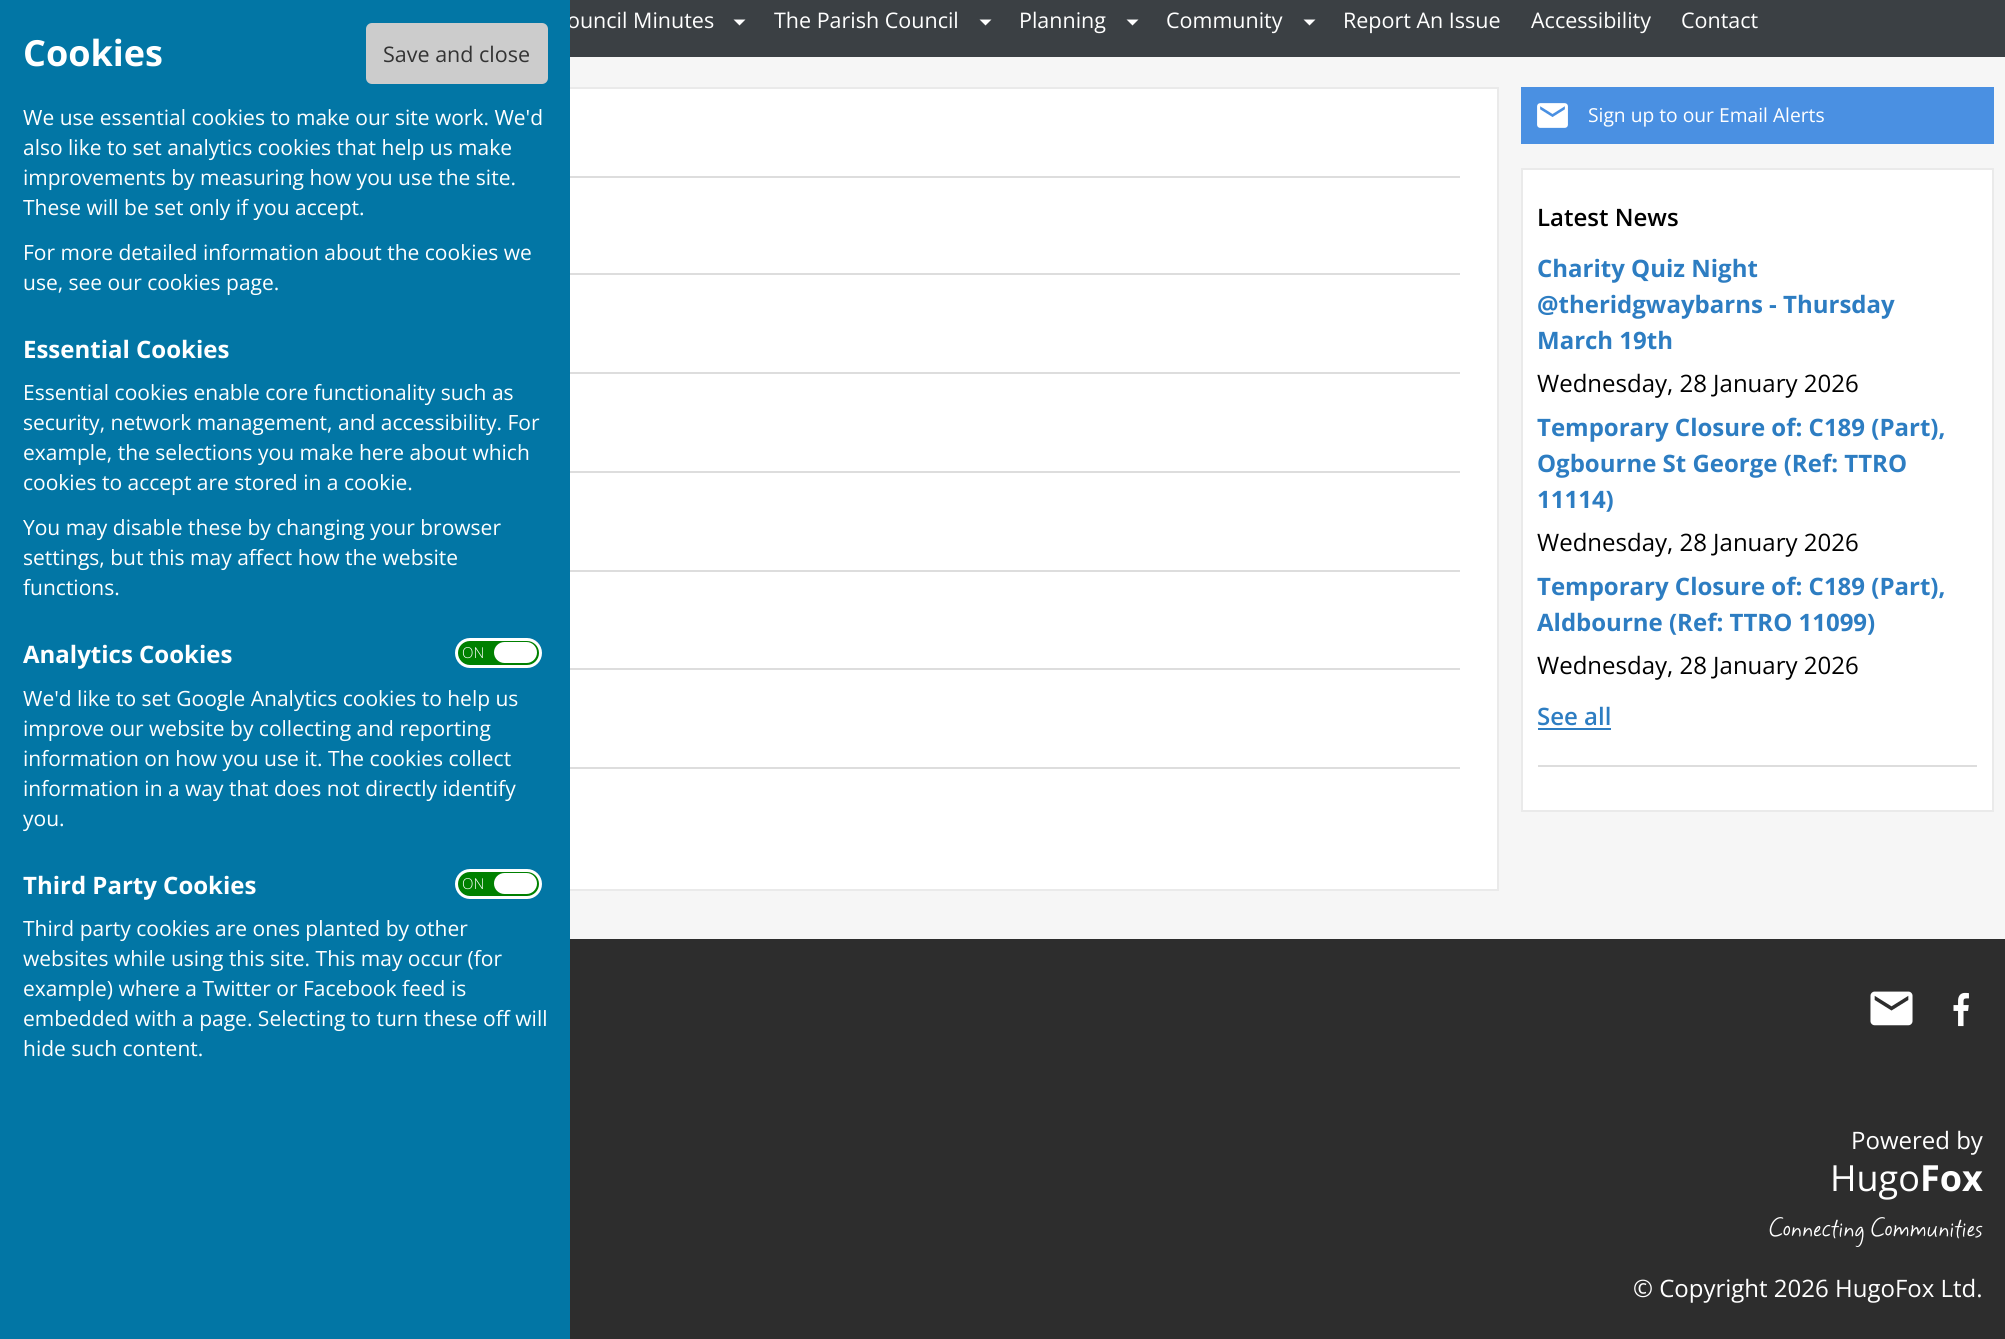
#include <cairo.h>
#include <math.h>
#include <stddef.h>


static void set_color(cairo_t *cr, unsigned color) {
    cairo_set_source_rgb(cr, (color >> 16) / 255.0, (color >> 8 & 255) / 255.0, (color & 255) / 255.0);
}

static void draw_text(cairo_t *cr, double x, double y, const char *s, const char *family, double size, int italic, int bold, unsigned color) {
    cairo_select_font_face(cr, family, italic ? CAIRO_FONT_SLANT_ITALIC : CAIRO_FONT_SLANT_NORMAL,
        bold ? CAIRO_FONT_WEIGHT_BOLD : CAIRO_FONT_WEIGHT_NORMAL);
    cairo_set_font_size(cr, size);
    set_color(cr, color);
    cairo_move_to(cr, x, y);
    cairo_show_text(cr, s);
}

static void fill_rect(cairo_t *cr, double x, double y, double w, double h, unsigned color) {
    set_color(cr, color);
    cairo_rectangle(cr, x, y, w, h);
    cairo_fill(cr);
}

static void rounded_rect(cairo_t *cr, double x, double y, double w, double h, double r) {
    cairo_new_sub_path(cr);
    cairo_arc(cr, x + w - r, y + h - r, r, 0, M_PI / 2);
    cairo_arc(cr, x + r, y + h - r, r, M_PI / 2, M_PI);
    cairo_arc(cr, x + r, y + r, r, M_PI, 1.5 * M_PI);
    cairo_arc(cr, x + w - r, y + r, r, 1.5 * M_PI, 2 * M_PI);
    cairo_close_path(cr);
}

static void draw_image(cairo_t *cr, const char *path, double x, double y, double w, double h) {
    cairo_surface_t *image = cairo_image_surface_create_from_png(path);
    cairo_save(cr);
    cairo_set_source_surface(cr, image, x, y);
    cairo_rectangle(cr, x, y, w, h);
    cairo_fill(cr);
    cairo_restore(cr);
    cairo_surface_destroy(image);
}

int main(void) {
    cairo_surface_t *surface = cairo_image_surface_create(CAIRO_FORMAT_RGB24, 2005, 1339);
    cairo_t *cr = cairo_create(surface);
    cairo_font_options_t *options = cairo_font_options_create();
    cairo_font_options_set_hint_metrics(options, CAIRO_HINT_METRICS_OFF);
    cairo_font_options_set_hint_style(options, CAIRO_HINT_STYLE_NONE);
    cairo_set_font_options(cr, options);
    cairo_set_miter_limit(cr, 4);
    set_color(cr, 0xF6F6F6);
    cairo_paint(cr);
    fill_rect(cr, 570, 0, 1435, 57, 0x3B4044);
    draw_text(cr, 567, 28, "ouncil Minutes", "Open Sans", 21.5, 0, 0, 0xFFFFFF);
    fill_rect(cr, 570, 89, 927, 800, 0xFFFFFF);
    cairo_rectangle(cr, 13, 88, 1485, 802);
    set_color(cr, 0xEAEAEA);
    cairo_stroke(cr);
    fill_rect(cr, 0, 0, 570, 1339, 0x0276A5);
    draw_text(cr, 23, 66, "Cookies", "Open Sans", 36, 0, 1, 0xFFFFFF);
    set_color(cr, 0xCCCCCC);
    rounded_rect(cr, 366, 23, 182, 61, 6);
    cairo_fill(cr);
    draw_text(cr, 383, 62, "Save and close", "Open Sans", 21.5, 0, 0, 0x333333);
    draw_text(cr, 23, 125, "We use essential cookies to make our site work. We'd", "Open Sans", 21, 0, 0, 0xFFFFFF);
    draw_text(cr, 23, 155, "also like to set analytics cookies that help us make", "Open Sans", 21, 0, 0, 0xFFFFFF);
    draw_text(cr, 23, 185, "improvements by measuring how you use the site.", "Open Sans", 21, 0, 0, 0xFFFFFF);
    draw_text(cr, 23, 215, "These will be set only if you accept.", "Open Sans", 21, 0, 0, 0xFFFFFF);
    draw_text(cr, 23, 260, "For more detailed information about the cookies we", "Open Sans", 21, 0, 0, 0xFFFFFF);
    draw_text(cr, 23, 290, "use, see our cookies page.", "Open Sans", 21, 0, 0, 0xFFFFFF);
    draw_text(cr, 23, 358, "Essential Cookies", "Open Sans", 24, 0, 1, 0xFFFFFF);
    draw_text(cr, 23, 400, "Essential cookies enable core functionality such as", "Open Sans", 21, 0, 0, 0xFFFFFF);
    draw_text(cr, 23, 430, "security, network management, and accessibility. For", "Open Sans", 21, 0, 0, 0xFFFFFF);
    draw_text(cr, 23, 460, "example, the selections you make here about which", "Open Sans", 21, 0, 0, 0xFFFFFF);
    draw_text(cr, 23, 490, "cookies to accept are stored in a cookie.", "Open Sans", 21, 0, 0, 0xFFFFFF);
    draw_text(cr, 23, 535, "You may disable these by changing your browser", "Open Sans", 21, 0, 0, 0xFFFFFF);
    draw_text(cr, 23, 565, "settings, but this may affect how the website", "Open Sans", 21, 0, 0, 0xFFFFFF);
    draw_text(cr, 23, 595, "functions.", "Open Sans", 21, 0, 0, 0xFFFFFF);
    draw_text(cr, 23, 663, "Analytics Cookies", "Open Sans", 24, 0, 1, 0xFFFFFF);
    set_color(cr, 0x008000);
    rounded_rect(cr, 456.5, 639.5, 84, 27, 13.5);
    cairo_fill_preserve(cr);
    set_color(cr, 0xFFFFFF);
    cairo_set_line_width(cr, 3);
    cairo_stroke(cr);
    draw_text(cr, 462, 658, "ON", "Open Sans Light", 15, 0, 0, 0xFFFFFF);
    rounded_rect(cr, 494, 642, 43, 21, 10.5);
    cairo_fill(cr);
    draw_text(cr, 23, 706, "We'd like to set Google Analytics cookies to help us", "Open Sans", 21, 0, 0, 0xFFFFFF);
    draw_text(cr, 23, 736, "improve our website by collecting and reporting", "Open Sans", 21, 0, 0, 0xFFFFFF);
    draw_text(cr, 23, 766, "information on how you use it. The cookies collect", "Open Sans", 21, 0, 0, 0xFFFFFF);
    draw_text(cr, 23, 796, "information in a way that does not directly identify", "Open Sans", 21, 0, 0, 0xFFFFFF);
    draw_text(cr, 23, 826, "you.", "Open Sans", 21, 0, 0, 0xFFFFFF);
    draw_text(cr, 23, 894, "Third Party Cookies", "Open Sans", 24, 0, 1, 0xFFFFFF);
    set_color(cr, 0x008000);
    rounded_rect(cr, 456.5, 870.5, 84, 27, 13.5);
    cairo_fill_preserve(cr);
    set_color(cr, 0xFFFFFF);
    cairo_stroke(cr);
    draw_text(cr, 462, 889, "ON", "Open Sans Light", 15, 0, 0, 0xFFFFFF);
    rounded_rect(cr, 494, 873, 43, 21, 10.5);
    cairo_fill(cr);
    draw_text(cr, 23, 936, "Third party cookies are ones planted by other", "Open Sans", 21, 0, 0, 0xFFFFFF);
    draw_text(cr, 23, 966, "websites while using this site. This may occur (for", "Open Sans", 21, 0, 0, 0xFFFFFF);
    draw_text(cr, 23, 996, "example) where a Twitter or Facebook feed is", "Open Sans", 21, 0, 0, 0xFFFFFF);
    draw_text(cr, 23, 1026, "embedded with a page. Selecting to turn these off will", "Open Sans", 21, 0, 0, 0xFFFFFF);
    draw_text(cr, 23, 1056, "hide such content.", "Open Sans", 21, 0, 0, 0xFFFFFF);
    cairo_new_path(cr);
    cairo_move_to(cr, 733.5, 19.5);
    cairo_line_to(cr, 745.5, 19.5);
    cairo_line_to(cr, 739.5, 25.5);
    cairo_close_path(cr);
    cairo_fill(cr);
    draw_text(cr, 774, 28, "The Parish Council", "Open Sans", 21.5, 0, 0, 0xFFFFFF);
    cairo_new_path(cr);
    cairo_move_to(cr, 979.5, 19.5);
    cairo_line_to(cr, 991.5, 19.5);
    cairo_line_to(cr, 985.5, 25.5);
    cairo_close_path(cr);
    cairo_fill(cr);
    draw_text(cr, 1019, 28, "Planning", "Open Sans", 21.5, 0, 0, 0xFFFFFF);
    cairo_new_path(cr);
    cairo_move_to(cr, 1126.5, 19.5);
    cairo_line_to(cr, 1138.5, 19.5);
    cairo_line_to(cr, 1132.5, 25.5);
    cairo_close_path(cr);
    cairo_fill(cr);
    draw_text(cr, 1166, 28, "Community", "Open Sans", 21.5, 0, 0, 0xFFFFFF);
    cairo_new_path(cr);
    cairo_move_to(cr, 1303.5, 19.5);
    cairo_line_to(cr, 1315.5, 19.5);
    cairo_line_to(cr, 1309.5, 25.5);
    cairo_close_path(cr);
    cairo_fill(cr);
    draw_text(cr, 1343, 28, "Report An Issue", "Open Sans", 21.5, 0, 0, 0xFFFFFF);
    draw_text(cr, 1531, 28, "Accessibility", "Open Sans", 21.5, 0, 0, 0xFFFFFF);
    draw_text(cr, 1681, 28, "Contact", "Open Sans", 21.5, 0, 0, 0xFFFFFF);
    fill_rect(cr, 570, 176, 890, 2, 0xDDDDDD);
    fill_rect(cr, 570, 273, 890, 2, 0xDDDDDD);
    fill_rect(cr, 570, 372, 890, 2, 0xDDDDDD);
    fill_rect(cr, 570, 471, 890, 2, 0xDDDDDD);
    fill_rect(cr, 570, 570, 890, 2, 0xDDDDDD);
    fill_rect(cr, 570, 668, 890, 2, 0xDDDDDD);
    fill_rect(cr, 570, 767, 890, 2, 0xDDDDDD);
    fill_rect(cr, 1521, 87, 473, 57, 0x4A90E2);
    draw_image(cr, "assets/img1.png", 1537, 103, 31, 25);
    draw_text(cr, 1588, 122, "Sign up to our Email Alerts", "Open Sans", 19.25, 0, 0, 0xFFFFFF);
    cairo_rectangle(cr, 1522, 169, 471, 642);
    cairo_fill_preserve(cr);
    set_color(cr, 0xEAEAEA);
    cairo_set_line_width(cr, 2);
    cairo_stroke(cr);
    draw_text(cr, 1537, 226, "Latest News", "Open Sans SemiBold", 24, 0, 0, 0x000000);
    draw_text(cr, 1537, 277, "Charity Quiz Night", "Open Sans", 24, 0, 1, 0x2D7DC2);
    draw_text(cr, 1537, 313, "@theridgwaybarns - Thursday", "Open Sans", 24, 0, 1, 0x2D7DC2);
    draw_text(cr, 1537, 349, "March 19th", "Open Sans", 24, 0, 1, 0x2D7DC2);
    draw_text(cr, 1537, 392, "Wednesday, 28 January 2026", "Open Sans", 24, 0, 0, 0x000000);
    draw_text(cr, 1537, 436, "Temporary Closure of: C189 (Part),", "Open Sans", 24, 0, 1, 0x2D7DC2);
    draw_text(cr, 1537, 472, "Ogbourne St George (Ref: TTRO", "Open Sans", 24, 0, 1, 0x2D7DC2);
    draw_text(cr, 1537, 508, "11114)", "Open Sans", 24, 0, 1, 0x2D7DC2);
    draw_text(cr, 1537, 551, "Wednesday, 28 January 2026", "Open Sans", 24, 0, 0, 0x000000);
    draw_text(cr, 1537, 595, "Temporary Closure of: C189 (Part),", "Open Sans", 24, 0, 1, 0x2D7DC2);
    draw_text(cr, 1537, 631, "Aldbourne (Ref: TTRO 11099)", "Open Sans", 24, 0, 1, 0x2D7DC2);
    draw_text(cr, 1537, 674, "Wednesday, 28 January 2026", "Open Sans", 24, 0, 0, 0x000000);
    draw_text(cr, 1537, 725, "See all", "Open Sans SemiBold", 24, 0, 0, 0x2D7DC2);
    fill_rect(cr, 1538, 728, 73, 2, 0x2D7DC2);
    fill_rect(cr, 1538, 765, 439, 2, 0xDDDDDD);
    fill_rect(cr, 570, 939, 1435, 400, 0x2D2D2D);
    draw_image(cr, "assets/img2.png", 1870, 991, 43, 35);
    draw_image(cr, "assets/img3.png", 1953, 992, 16, 35);
    draw_text(cr, 1851, 1149, "Powered by", "Open Sans", 24, 0, 0, 0xFFFFFF);
    draw_text(cr, 1830, 1191, "Hugo", "Open Sans", 36, 0, 0, 0xFFFFFF);
    draw_text(cr, 1920, 1191, "Fox", "Open Sans", 36, 0, 1, 0xFFFFFF);
    draw_text(cr, 1769, 1236, "Connecting Communities", "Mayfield", 24, 0, 0, 0xFFFFFF);
    draw_text(cr, 1633, 1297, "© Copyright 2026 HugoFox Ltd.", "Open Sans", 24, 0, 0, 0xFFFFFF);
    cairo_surface_write_to_png(surface, "output.png");
    cairo_font_options_destroy(options);
    cairo_destroy(cr);
    cairo_surface_destroy(surface);
    return 0;
}
